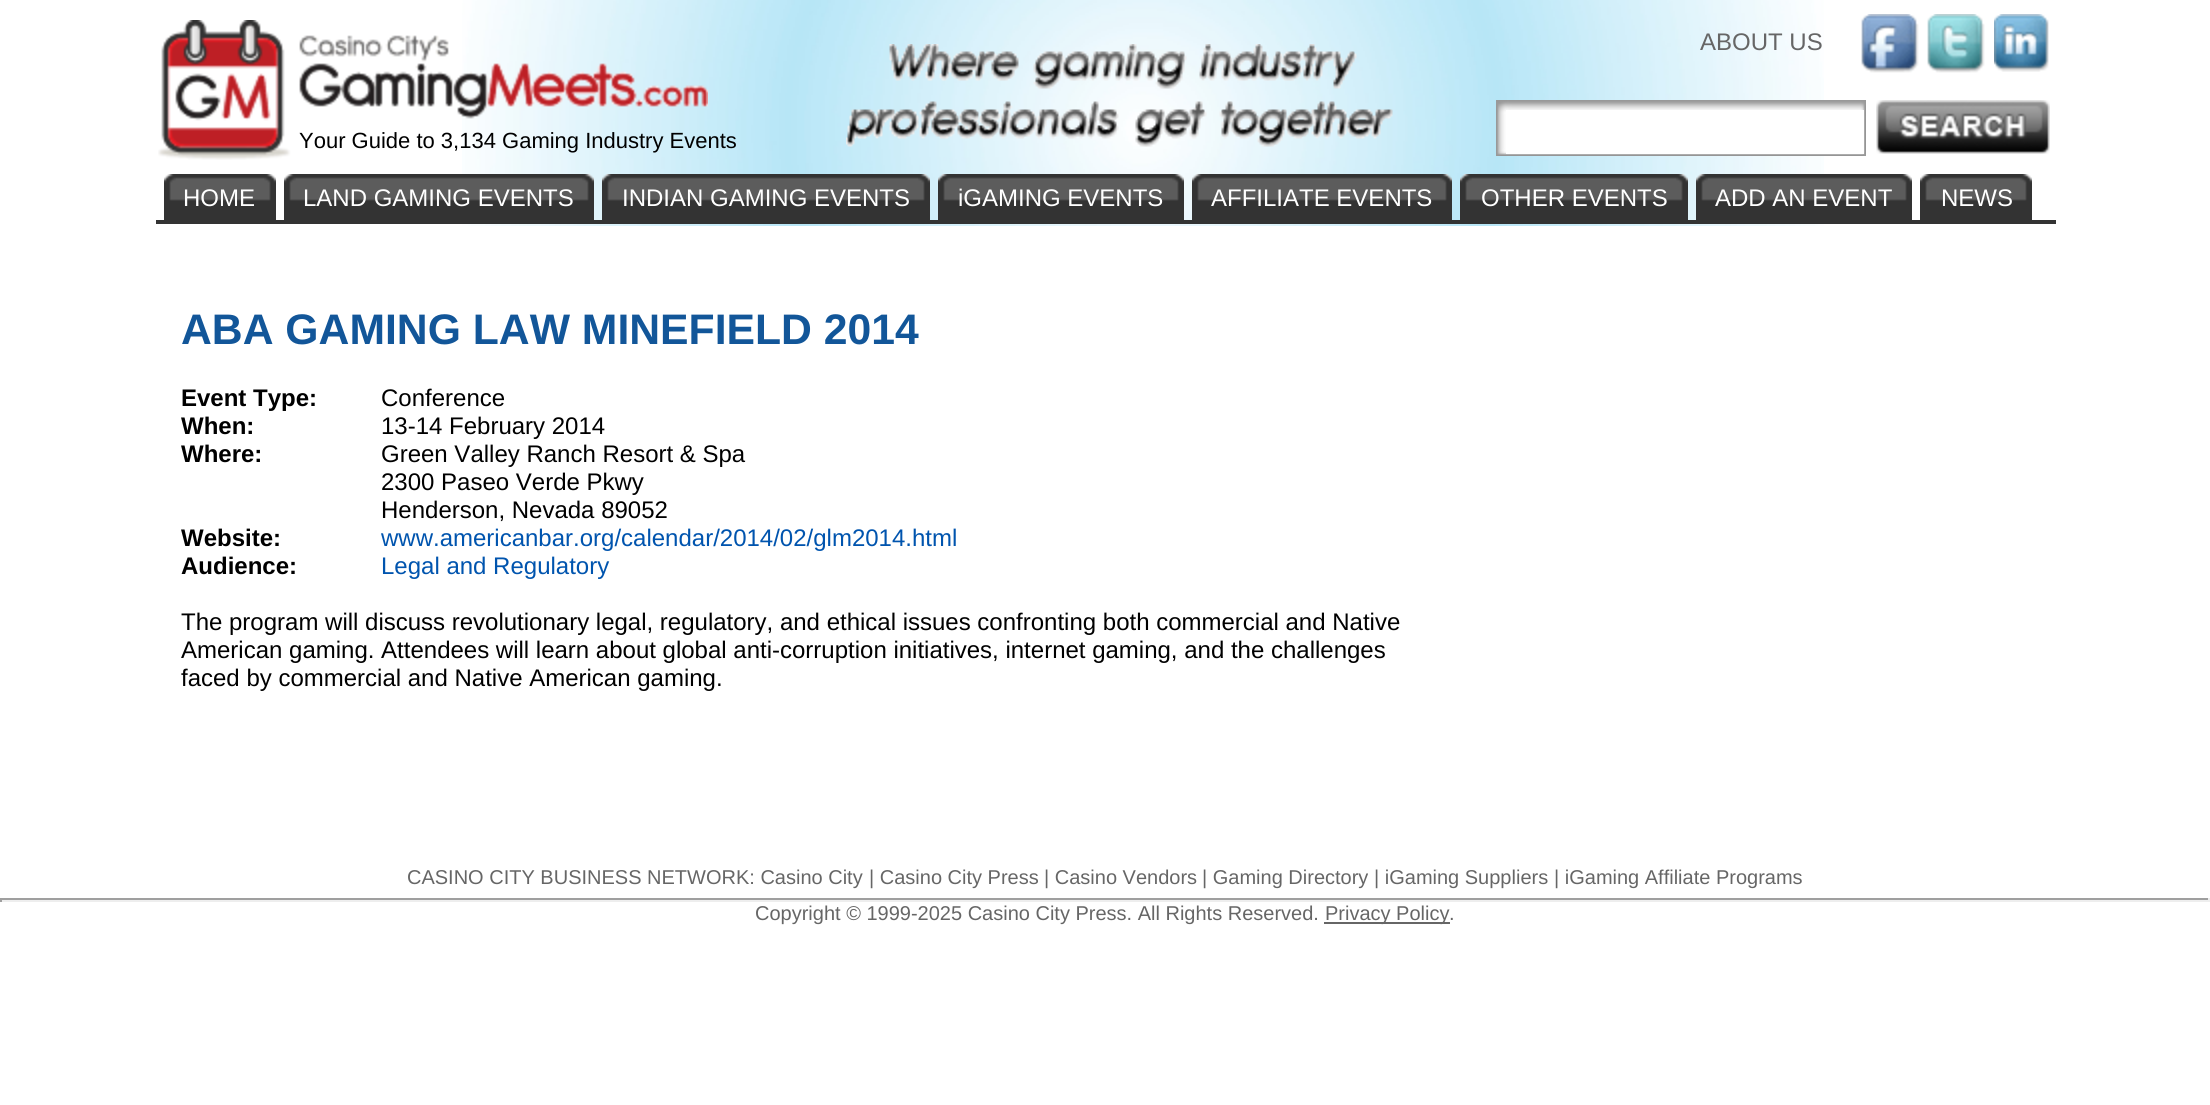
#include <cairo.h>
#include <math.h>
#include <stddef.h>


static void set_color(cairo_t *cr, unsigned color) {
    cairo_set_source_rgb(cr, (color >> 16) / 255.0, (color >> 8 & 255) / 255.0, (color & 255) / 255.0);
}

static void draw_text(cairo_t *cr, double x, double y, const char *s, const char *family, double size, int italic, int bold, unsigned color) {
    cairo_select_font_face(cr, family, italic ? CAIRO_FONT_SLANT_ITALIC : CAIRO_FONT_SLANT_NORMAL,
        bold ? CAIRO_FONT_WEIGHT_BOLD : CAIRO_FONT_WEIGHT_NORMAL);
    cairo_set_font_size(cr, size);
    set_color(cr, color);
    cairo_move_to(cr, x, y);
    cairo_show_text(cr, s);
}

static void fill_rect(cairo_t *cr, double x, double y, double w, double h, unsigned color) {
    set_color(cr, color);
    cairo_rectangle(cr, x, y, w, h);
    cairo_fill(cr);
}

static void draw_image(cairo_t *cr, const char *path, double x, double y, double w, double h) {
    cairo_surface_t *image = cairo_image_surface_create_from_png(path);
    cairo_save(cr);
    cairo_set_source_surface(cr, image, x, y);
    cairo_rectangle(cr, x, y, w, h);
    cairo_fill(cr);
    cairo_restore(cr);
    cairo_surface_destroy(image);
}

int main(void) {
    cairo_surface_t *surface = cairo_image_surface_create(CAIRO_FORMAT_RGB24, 2210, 1105);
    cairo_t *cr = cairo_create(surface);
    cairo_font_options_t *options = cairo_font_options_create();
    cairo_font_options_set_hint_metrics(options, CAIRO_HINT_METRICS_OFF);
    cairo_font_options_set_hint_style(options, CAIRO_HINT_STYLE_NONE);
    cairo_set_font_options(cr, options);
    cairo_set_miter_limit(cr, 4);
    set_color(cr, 0xFFFFFF);
    cairo_paint(cr);
    draw_image(cr, "assets/img1.png", 462, 0, 1362, 226);
    draw_image(cr, "assets/img2.png", 158, 20, 550, 140);
    draw_text(cr, 1700, 50, "ABOUT US", "Liberation Sans", 24, 0, 0, 0x666666);
    draw_image(cr, "assets/img3.png", 1861, 14, 58, 59);
    draw_image(cr, "assets/img4.png", 1927, 14, 58, 59);
    draw_image(cr, "assets/img5.png", 1994, 14, 55, 58);
    draw_text(cr, 299, 148, "Your Guide to 3,134 Gaming Industry Events", "Liberation Sans", 22, 0, 0, 0x000000);
    draw_image(cr, "assets/img6.png", 846, 44, 547, 103);
    draw_image(cr, "assets/img7.png", 846, 44, 547, 103);
    draw_image(cr, "assets/img8.png", 1496, 100, 370, 56);
    draw_image(cr, "assets/img9.png", 1876, 100, 174, 54);
    fill_rect(cr, 1506, 110, 358, 44, 0xFFFFFF);
    draw_image(cr, "assets/img10.png", 164, 174, 12, 46);
    draw_image(cr, "assets/img11.png", 176, 174, 88, 46);
    draw_text(cr, 183, 206, "HOME", "Liberation Sans", 24, 0, 0, 0xFFFFFF);
    draw_image(cr, "assets/img12.png", 264, 174, 12, 46);
    draw_image(cr, "assets/img10.png", 284, 174, 12, 46);
    draw_image(cr, "assets/img13.png", 296, 174, 286, 46);
    draw_text(cr, 303, 206, "LAND GAMING EVENTS", "Liberation Sans", 24, 0, 0, 0xFFFFFF);
    draw_image(cr, "assets/img14.png", 582, 174, 12, 46);
    draw_image(cr, "assets/img15.png", 602, 174, 12, 46);
    draw_image(cr, "assets/img16.png", 614, 174, 304, 46);
    draw_text(cr, 622, 206, "INDIAN GAMING EVENTS", "Liberation Sans", 24, 0, 0, 0xFFFFFF);
    draw_image(cr, "assets/img17.png", 918, 174, 12, 46);
    draw_image(cr, "assets/img18.png", 938, 174, 12, 46);
    draw_image(cr, "assets/img19.png", 950, 174, 222, 46);
    draw_text(cr, 958, 206, "iGAMING EVENTS", "Liberation Sans", 24, 0, 0, 0xFFFFFF);
    draw_image(cr, "assets/img20.png", 1172, 174, 12, 46);
    draw_image(cr, "assets/img21.png", 1192, 174, 12, 46);
    draw_image(cr, "assets/img22.png", 1204, 174, 236, 46);
    draw_text(cr, 1211, 206, "AFFILIATE EVENTS", "Liberation Sans", 24, 0, 0, 0xFFFFFF);
    draw_image(cr, "assets/img23.png", 1440, 174, 12, 46);
    draw_image(cr, "assets/img24.png", 1460, 174, 12, 46);
    draw_image(cr, "assets/img25.png", 1472, 174, 204, 46);
    draw_text(cr, 1481, 206, "OTHER EVENTS", "Liberation Sans", 24, 0, 0, 0xFFFFFF);
    draw_image(cr, "assets/img26.png", 1676, 174, 12, 46);
    draw_image(cr, "assets/img27.png", 1696, 174, 12, 46);
    draw_image(cr, "assets/img28.png", 1708, 174, 192, 46);
    draw_text(cr, 1715, 206, "ADD AN EVENT", "Liberation Sans", 24, 0, 0, 0xFFFFFF);
    draw_image(cr, "assets/img12.png", 1900, 174, 12, 46);
    draw_image(cr, "assets/img10.png", 1920, 174, 12, 46);
    draw_image(cr, "assets/img11.png", 1932, 174, 88, 46);
    draw_text(cr, 1941, 206, "NEWS", "Liberation Sans", 24, 0, 0, 0xFFFFFF);
    draw_image(cr, "assets/img12.png", 2020, 174, 12, 46);
    fill_rect(cr, 156, 220, 1900, 4, 0x333333);
    draw_text(cr, 181, 344, "ABA GAMING LAW MINEFIELD 2014", "Liberation Sans", 42.7, 0, 1, 0x125699);
    draw_text(cr, 181, 406, "Event Type:", "Liberation Sans", 24, 0, 1, 0x000000);
    draw_text(cr, 381, 406, "Conference", "Liberation Sans", 24, 0, 0, 0x000000);
    draw_text(cr, 181, 434, "When:", "Liberation Sans", 24, 0, 1, 0x000000);
    draw_text(cr, 381, 434, "13-14 February 2014", "Liberation Sans", 24, 0, 0, 0x000000);
    draw_text(cr, 181, 462, "Where:", "Liberation Sans", 24, 0, 1, 0x000000);
    draw_text(cr, 381, 462, "Green Valley Ranch Resort & Spa", "Liberation Sans", 24, 0, 0, 0x000000);
    draw_text(cr, 381, 490, "2300 Paseo Verde Pkwy", "Liberation Sans", 24, 0, 0, 0x000000);
    draw_text(cr, 381, 518, "Henderson, Nevada 89052", "Liberation Sans", 24, 0, 0, 0x000000);
    draw_text(cr, 181, 546, "Website:", "Liberation Sans", 24, 0, 1, 0x000000);
    draw_text(cr, 381, 546, "www.americanbar.org/calendar/2014/02/glm2014.html", "Liberation Sans", 24, 0, 0, 0x0054AE);
    draw_text(cr, 181, 574, "Audience:", "Liberation Sans", 24, 0, 1, 0x000000);
    draw_text(cr, 381, 574, "Legal and Regulatory", "Liberation Sans", 24, 0, 0, 0x0054AE);
    draw_text(cr, 181, 630, "The program will discuss revolutionary legal, regulatory, and ethical issues confronting both commercial and Native", "Liberation Sans", 24, 0, 0, 0x000000);
    draw_text(cr, 181, 658, "American gaming. Attendees will learn about global anti-corruption initiatives, internet gaming, and the challenges", "Liberation Sans", 24, 0, 0, 0x000000);
    draw_text(cr, 181, 686, "faced by commercial and Native American gaming.", "Liberation Sans", 24, 0, 0, 0x000000);
    draw_text(cr, 407, 884, "CASINO CITY BUSINESS NETWORK: Casino City", "Liberation Sans", 20, 0, 0, 0x666666);
    draw_text(cr, 869, 884, "| Casino City Press", "Liberation Sans", 20, 0, 0, 0x666666);
    draw_text(cr, 1044, 884, "| Casino Vendors", "Liberation Sans", 20, 0, 0, 0x666666);
    draw_text(cr, 1202, 884, "| Gaming Directory", "Liberation Sans", 20, 0, 0, 0x666666);
    draw_text(cr, 1374, 884, "| iGaming Suppliers", "Liberation Sans", 20, 0, 0, 0x666666);
    draw_text(cr, 1554, 884, "| iGaming Affiliate Programs", "Liberation Sans", 20, 0, 0, 0x666666);
    fill_rect(cr, 0, 898, 2210, 2, 0x9F9F9F);
    fill_rect(cr, 2208, 898, 2, 4, 0xEEEEEE);
    fill_rect(cr, 0, 900, 2210, 2, 0xEEEEEE);
    fill_rect(cr, 0, 898, 2, 4, 0x9F9F9F);
    draw_text(cr, 755, 920, "Copyright © 1999-2025 Casino City Press. All Rights Reserved.", "Liberation Sans", 20, 0, 0, 0x666666);
    fill_rect(cr, 1324, 922, 126, 2, 0x666666);
    draw_text(cr, 1325, 920, "Privacy Policy", "Liberation Sans", 20, 0, 0, 0x666666);
    draw_text(cr, 1449, 920, ".", "Liberation Sans", 20, 0, 0, 0x666666);
    cairo_surface_write_to_png(surface, "output.png");
    cairo_font_options_destroy(options);
    cairo_destroy(cr);
    cairo_surface_destroy(surface);
    return 0;
}
